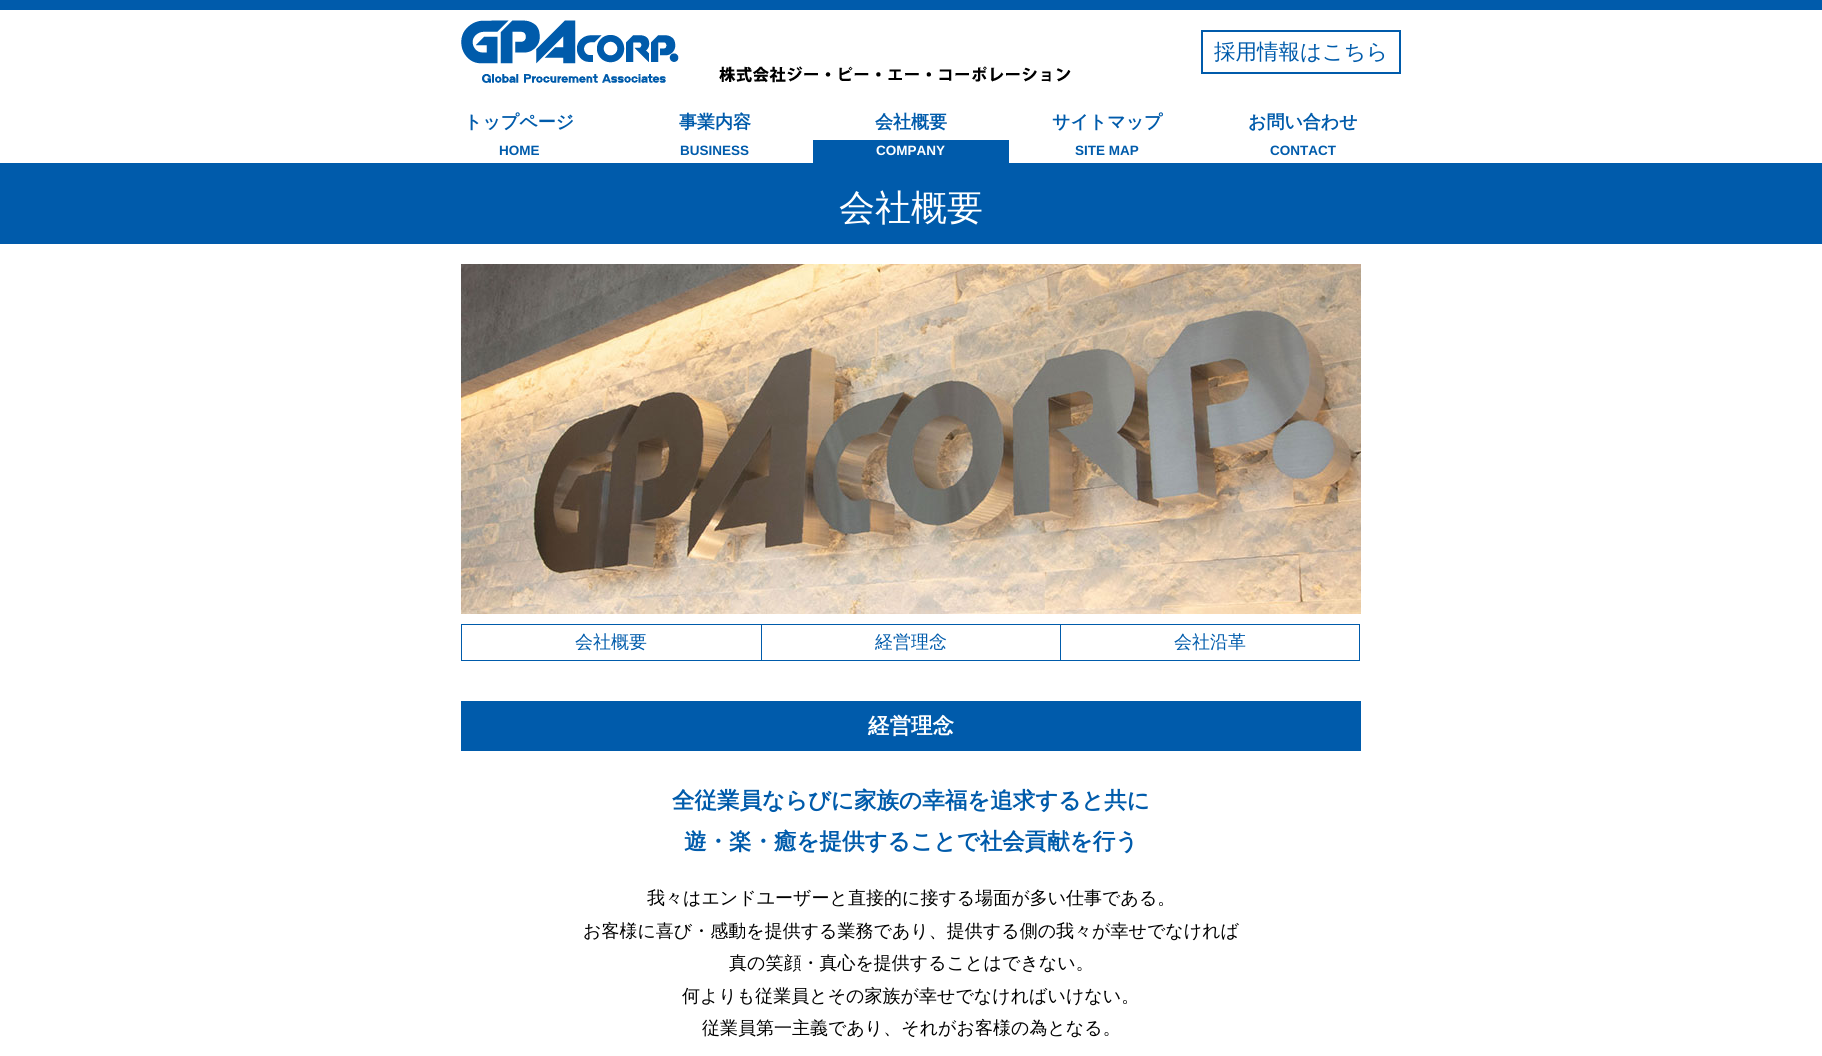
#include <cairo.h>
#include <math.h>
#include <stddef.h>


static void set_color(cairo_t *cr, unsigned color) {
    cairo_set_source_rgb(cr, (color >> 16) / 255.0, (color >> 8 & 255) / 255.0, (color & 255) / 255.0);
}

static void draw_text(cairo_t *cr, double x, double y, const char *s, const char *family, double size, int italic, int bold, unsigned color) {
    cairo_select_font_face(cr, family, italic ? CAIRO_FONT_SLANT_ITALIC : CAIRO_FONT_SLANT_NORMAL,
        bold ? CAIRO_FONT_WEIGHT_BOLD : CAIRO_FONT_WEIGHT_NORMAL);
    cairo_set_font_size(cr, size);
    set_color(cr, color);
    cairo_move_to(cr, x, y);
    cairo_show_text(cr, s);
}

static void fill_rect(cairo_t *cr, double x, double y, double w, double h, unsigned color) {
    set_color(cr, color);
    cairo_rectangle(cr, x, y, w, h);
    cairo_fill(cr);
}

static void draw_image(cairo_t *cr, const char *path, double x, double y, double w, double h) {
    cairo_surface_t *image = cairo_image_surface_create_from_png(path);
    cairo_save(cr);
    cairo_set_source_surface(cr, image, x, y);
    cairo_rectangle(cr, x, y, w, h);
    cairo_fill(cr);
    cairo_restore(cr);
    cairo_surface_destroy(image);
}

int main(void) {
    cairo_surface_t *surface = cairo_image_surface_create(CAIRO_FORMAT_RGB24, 1822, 1056);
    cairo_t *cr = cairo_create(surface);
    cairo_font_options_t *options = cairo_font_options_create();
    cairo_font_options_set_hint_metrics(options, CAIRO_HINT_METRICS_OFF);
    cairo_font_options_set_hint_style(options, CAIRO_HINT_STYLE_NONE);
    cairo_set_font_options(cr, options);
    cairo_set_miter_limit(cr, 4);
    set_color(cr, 0xFFFFFF);
    cairo_paint(cr);
    fill_rect(cr, 0, 0, 1822, 10, 0x005BAB);
    draw_image(cr, "assets/img1.png", 461, 20, 218, 63);
    draw_image(cr, "assets/img2.png", 719, 66, 352, 17);
    cairo_rectangle(cr, 1202, 31, 198, 42);
    cairo_stroke(cr);
    draw_text(cr, 1214, 59, "採用情報はこちら", "WenQuanYi Zen Hei Medium", 21.5, 0, 0, 0x005BAB);
    draw_text(cr, 464, 128, "トップページ", "WenQuanYi Zen Hei", 18, 0, 1, 0x005BAB);
    draw_text(cr, 499, 155, "HOME", "Liberation Sans", 13.5, 0, 1, 0x005BAB);
    draw_text(cr, 679, 128, "事業内容", "WenQuanYi Zen Hei", 18, 0, 1, 0x005BAB);
    draw_text(cr, 680, 155, "BUSINESS", "Liberation Sans", 13.5, 0, 1, 0x005BAB);
    draw_text(cr, 875, 128, "会社概要", "WenQuanYi Zen Hei", 18, 0, 1, 0x005BAB);
    fill_rect(cr, 813, 140, 196, 23, 0x005BAB);
    draw_text(cr, 876, 155, "COMPANY", "Liberation Sans", 13.5, 0, 1, 0xFFFFFF);
    draw_text(cr, 1052, 128, "サイトマップ", "WenQuanYi Zen Hei", 18, 0, 1, 0x005BAB);
    draw_text(cr, 1075, 155, "SITE MAP", "Liberation Sans", 13.5, 0, 1, 0x005BAB);
    draw_text(cr, 1248, 128, "お問い合わせ", "WenQuanYi Zen Hei", 18, 0, 1, 0x005BAB);
    draw_text(cr, 1270, 155, "CONTACT", "Liberation Sans", 13.5, 0, 1, 0x005BAB);
    fill_rect(cr, 0, 163, 1822, 81, 0x005BAB);
    draw_text(cr, 839, 220, "会社概要", "WenQuanYi Zen Hei Medium", 36, 0, 0, 0xFFFFFF);
    draw_image(cr, "assets/img3.png", 461, 264, 900, 350);
    fill_rect(cr, 461, 624, 599, 1, 0x005BAB);
    fill_rect(cr, 461, 660, 599, 1, 0x005BAB);
    fill_rect(cr, 461, 624, 1, 37, 0x005BAB);
    draw_text(cr, 575, 648, "会社概要", "WenQuanYi Zen Hei Medium", 18, 0, 0, 0x005BAB);
    fill_rect(cr, 761, 624, 1, 37, 0x005BAB);
    draw_text(cr, 875, 648, "経営理念", "WenQuanYi Zen Hei Medium", 18, 0, 0, 0x005BAB);
    cairo_rectangle(cr, 1060.5, 624.5, 299, 36);
    cairo_set_line_width(cr, 1);
    cairo_stroke(cr);
    draw_text(cr, 1174, 648, "会社沿革", "WenQuanYi Zen Hei Medium", 18, 0, 0, 0x005BAB);
    fill_rect(cr, 461, 701, 900, 50, 0x005BAB);
    draw_text(cr, 868, 733, "経営理念", "WenQuanYi Zen Hei", 21.5, 0, 1, 0xFFFFFF);
    draw_text(cr, 672, 808, "全従業員ならびに家族の幸福を追求すると共に", "WenQuanYi Zen Hei", 22.5, 0, 1, 0x005BAB);
    draw_text(cr, 684, 849, "遊・楽・癒を提供することで社会貢献を行う", "WenQuanYi Zen Hei", 22.5, 0, 1, 0x005BAB);
    draw_text(cr, 647, 904, "我々はエンドユーザーと直接的に接する場面が多い仕事である。", "WenQuanYi Zen Hei Medium", 18, 0, 0, 0x000000);
    draw_text(cr, 583, 937, "お客様に喜び・感動を提供する業務であり、提供する側の我々が幸せでなければ", "WenQuanYi Zen Hei Medium", 18, 0, 0, 0x000000);
    draw_text(cr, 729, 969, "真の笑顔・真心を提供することはできない。", "WenQuanYi Zen Hei Medium", 18, 0, 0, 0x000000);
    draw_text(cr, 682, 1002, "何よりも従業員とその家族が幸せでなければいけない。", "WenQuanYi Zen Hei Medium", 18, 0, 0, 0x000000);
    draw_text(cr, 702, 1034, "従業員第一主義であり、それがお客様の為となる。", "WenQuanYi Zen Hei Medium", 18, 0, 0, 0x000000);
    cairo_surface_write_to_png(surface, "output.png");
    cairo_font_options_destroy(options);
    cairo_destroy(cr);
    cairo_surface_destroy(surface);
    return 0;
}
